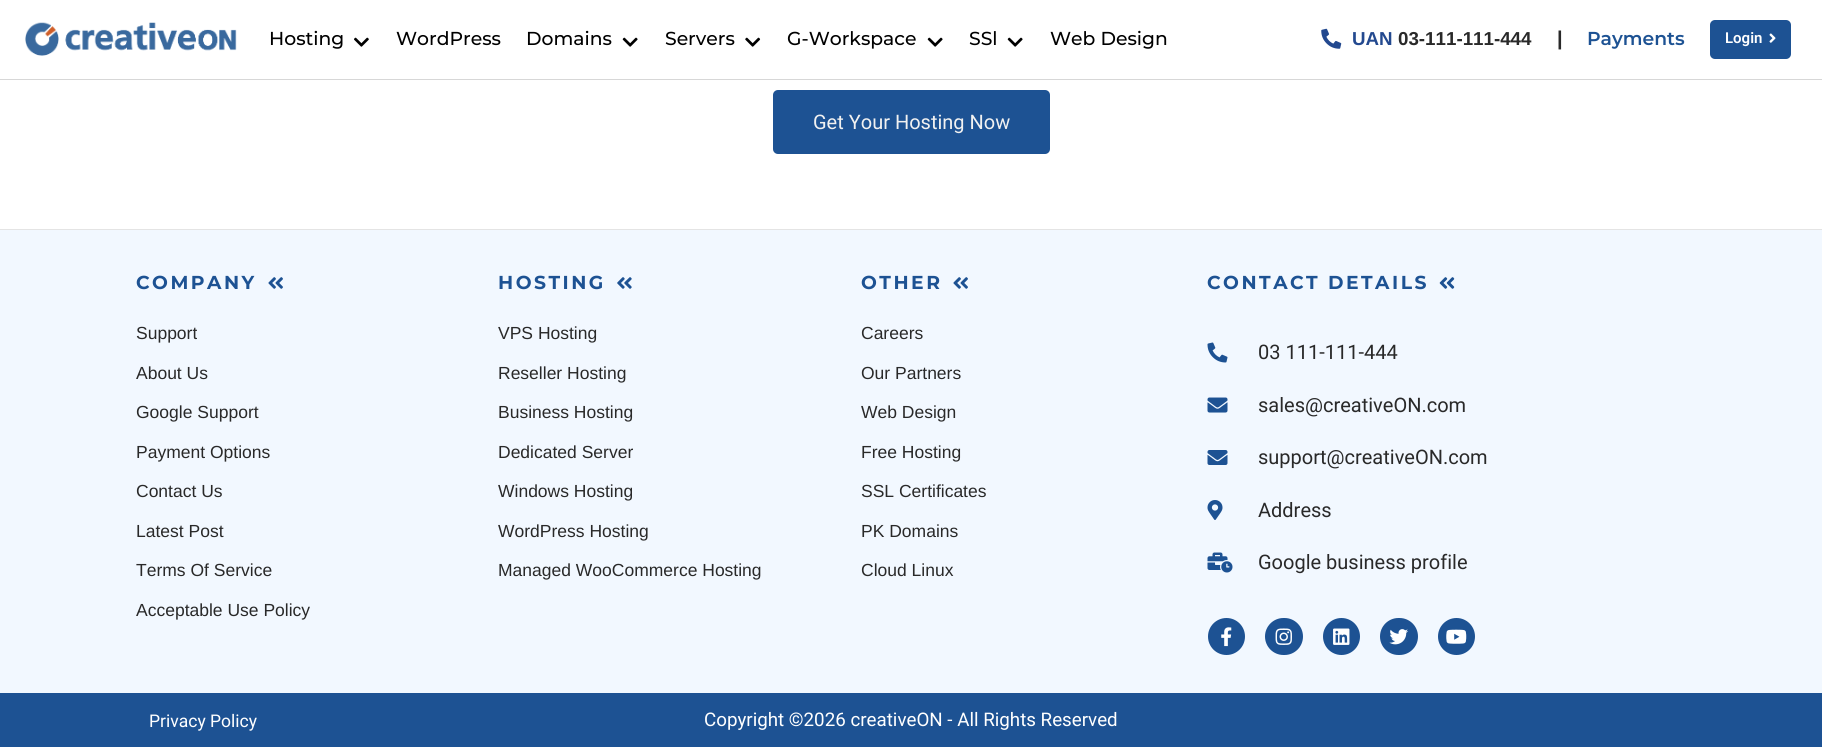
#include <cairo.h>
#include <math.h>
#include <stddef.h>


static void set_color(cairo_t *cr, unsigned color) {
    cairo_set_source_rgb(cr, (color >> 16) / 255.0, (color >> 8 & 255) / 255.0, (color & 255) / 255.0);
}

static void draw_text(cairo_t *cr, double x, double y, const char *s, const char *family, double size, int italic, int bold, unsigned color) {
    cairo_select_font_face(cr, family, italic ? CAIRO_FONT_SLANT_ITALIC : CAIRO_FONT_SLANT_NORMAL,
        bold ? CAIRO_FONT_WEIGHT_BOLD : CAIRO_FONT_WEIGHT_NORMAL);
    cairo_set_font_size(cr, size);
    set_color(cr, color);
    cairo_move_to(cr, x, y);
    cairo_show_text(cr, s);
}

static void draw_spaced(cairo_t *cr, double x, double y, const char *s, double letter, double word) {
    cairo_move_to(cr, x, y);
    while (*s) {
        char ch[5] = {0};
        int n = 0;
        do ch[n++] = *s++; while ((*s & 0xC0) == 0x80);
        cairo_show_text(cr, ch);
        cairo_rel_move_to(cr, letter + word * (*ch == ' '), 0);
    }
}

static void fill_rect(cairo_t *cr, double x, double y, double w, double h, unsigned color) {
    set_color(cr, color);
    cairo_rectangle(cr, x, y, w, h);
    cairo_fill(cr);
}

static void rounded_rect(cairo_t *cr, double x, double y, double w, double h, double r) {
    cairo_new_sub_path(cr);
    cairo_arc(cr, x + w - r, y + h - r, r, 0, M_PI / 2);
    cairo_arc(cr, x + r, y + h - r, r, M_PI / 2, M_PI);
    cairo_arc(cr, x + r, y + r, r, M_PI, 1.5 * M_PI);
    cairo_arc(cr, x + w - r, y + r, r, 1.5 * M_PI, 2 * M_PI);
    cairo_close_path(cr);
}

static void draw_image(cairo_t *cr, const char *path, double x, double y, double w, double h) {
    cairo_surface_t *image = cairo_image_surface_create_from_png(path);
    cairo_save(cr);
    cairo_set_source_surface(cr, image, x, y);
    cairo_rectangle(cr, x, y, w, h);
    cairo_fill(cr);
    cairo_restore(cr);
    cairo_surface_destroy(image);
}

int main(void) {
    cairo_surface_t *surface = cairo_image_surface_create(CAIRO_FORMAT_RGB24, 1822, 747);
    cairo_t *cr = cairo_create(surface);
    cairo_font_options_t *options = cairo_font_options_create();
    cairo_font_options_set_hint_metrics(options, CAIRO_HINT_METRICS_OFF);
    cairo_font_options_set_hint_style(options, CAIRO_HINT_STYLE_NONE);
    cairo_set_font_options(cr, options);
    cairo_set_miter_limit(cr, 4);
    set_color(cr, 0xFFFFFF);
    cairo_paint(cr);
    fill_rect(cr, 0, 79, 1822, 1, 0xD7D7D7);
    draw_image(cr, "assets/img1.png", 25, 22, 212, 34);
    draw_text(cr, 269, 45, "Hosting", "Montserrat Medium", 18.75, 0, 0, 0x000000);
    draw_image(cr, "assets/img2.png", 354, 37, 15, 10);
    draw_text(cr, 396, 45, "WordPress", "Montserrat Medium", 18.75, 0, 0, 0x000000);
    draw_text(cr, 526, 45, "Domains", "Montserrat Medium", 18.75, 0, 0, 0x000000);
    draw_image(cr, "assets/img3.png", 622, 37, 16, 10);
    draw_text(cr, 665, 45, "Servers", "Montserrat Medium", 18.75, 0, 0, 0x000000);
    draw_image(cr, "assets/img4.png", 745, 37, 16, 10);
    draw_text(cr, 787, 45, "G-Workspace", "Montserrat Medium", 18.75, 0, 0, 0x000000);
    draw_image(cr, "assets/img3.png", 927, 37, 16, 10);
    draw_text(cr, 969, 45, "SSl", "Montserrat Medium", 18.75, 0, 0, 0x000000);
    draw_image(cr, "assets/img3.png", 1007, 37, 16, 10);
    draw_text(cr, 1050, 45, "Web Design", "Montserrat Medium", 18.75, 0, 0, 0x000000);
    draw_image(cr, "assets/img5.png", 1321, 28, 21, 21);
    draw_text(cr, 1352, 45, "UAN", "Liberation Sans", 18.75, 0, 1, 0x23498F);
    draw_text(cr, 1398, 45, "03-111-111-444", "Liberation Sans", 18.75, 0, 1, 0x292929);
    draw_text(cr, 1557, 45, "|", "Liberation Sans", 20, 0, 1, 0x292929);
    draw_text(cr, 1587, 45, "Payments", "Montserrat SemiBold", 18.75, 0, 0, 0x1D5293);
    rounded_rect(cr, 1710, 20, 81, 39, 5);
    cairo_fill(cr);
    draw_text(cr, 1725, 43, "Login", "Roboto SemiBold", 15, 0, 0, 0xFFFFFF);
    draw_image(cr, "assets/img6.png", 1769, 33, 7, 10);
    set_color(cr, 0x1D5293);
    rounded_rect(cr, 773, 90, 277, 64, 5);
    cairo_fill(cr);
    draw_text(cr, 813, 129, "Get Your Hosting Now", "Roboto", 20, 0, 0, 0xF1F1F1);
    fill_rect(cr, 0, 229, 1822, 1, 0xE4E4E4);
    fill_rect(cr, 0, 230, 1822, 463, 0xF2F8FF);
    cairo_select_font_face(cr, "Montserrat", CAIRO_FONT_SLANT_NORMAL, CAIRO_FONT_WEIGHT_BOLD);
    cairo_set_font_size(cr, 18.75);
    set_color(cr, 0x1D5293);
    draw_spaced(cr, 136, 289, "COMPANY", 2.5, 0);
    draw_image(cr, "assets/img7.png", 268, 277, 15, 12);
    draw_text(cr, 136, 339, "Support", "Liberation Sans", 17.5, 0, 0, 0x292929);
    draw_text(cr, 136, 379, "About Us", "Liberation Sans", 17.5, 0, 0, 0x292929);
    draw_text(cr, 136, 418, "Google Support", "Liberation Sans", 17.5, 0, 0, 0x292929);
    draw_text(cr, 136, 458, "Payment Options", "Liberation Sans", 17.5, 0, 0, 0x292929);
    draw_text(cr, 136, 497, "Contact Us", "Liberation Sans", 17.5, 0, 0, 0x292929);
    draw_text(cr, 136, 537, "Latest Post", "Liberation Sans", 17.5, 0, 0, 0x292929);
    draw_text(cr, 136, 576, "Terms Of Service", "Liberation Sans", 17.5, 0, 0, 0x292929);
    draw_text(cr, 136, 616, "Acceptable Use Policy", "Liberation Sans", 17.5, 0, 0, 0x292929);
    cairo_select_font_face(cr, "Montserrat", CAIRO_FONT_SLANT_NORMAL, CAIRO_FONT_WEIGHT_BOLD);
    cairo_set_font_size(cr, 18.75);
    set_color(cr, 0x1D5293);
    draw_spaced(cr, 498, 289, "HOSTING", 2.5, 0);
    draw_image(cr, "assets/img8.png", 617, 277, 15, 12);
    draw_text(cr, 498, 339, "VPS Hosting", "Liberation Sans", 17.5, 0, 0, 0x292929);
    draw_text(cr, 498, 379, "Reseller Hosting", "Liberation Sans", 17.5, 0, 0, 0x292929);
    draw_text(cr, 498, 418, "Business Hosting", "Liberation Sans", 17.5, 0, 0, 0x292929);
    draw_text(cr, 498, 458, "Dedicated Server", "Liberation Sans", 17.5, 0, 0, 0x292929);
    draw_text(cr, 498, 497, "Windows Hosting", "Liberation Sans", 17.5, 0, 0, 0x292929);
    draw_text(cr, 498, 537, "WordPress Hosting", "Liberation Sans", 17.5, 0, 0, 0x292929);
    draw_text(cr, 498, 576, "Managed WooCommerce Hosting", "Liberation Sans", 17.5, 0, 0, 0x292929);
    cairo_select_font_face(cr, "Montserrat", CAIRO_FONT_SLANT_NORMAL, CAIRO_FONT_WEIGHT_BOLD);
    cairo_set_font_size(cr, 18.75);
    set_color(cr, 0x1D5293);
    draw_spaced(cr, 861, 289, "OTHER", 2.5, 0);
    draw_image(cr, "assets/img7.png", 953, 277, 15, 12);
    draw_text(cr, 861, 339, "Careers", "Liberation Sans", 17.5, 0, 0, 0x292929);
    draw_text(cr, 861, 379, "Our Partners", "Liberation Sans", 17.5, 0, 0, 0x292929);
    draw_text(cr, 861, 418, "Web Design", "Liberation Sans", 17.5, 0, 0, 0x292929);
    draw_text(cr, 861, 458, "Free Hosting", "Liberation Sans", 17.5, 0, 0, 0x292929);
    draw_text(cr, 861, 497, "SSL Certificates", "Liberation Sans", 17.5, 0, 0, 0x292929);
    draw_text(cr, 861, 537, "PK Domains", "Liberation Sans", 17.5, 0, 0, 0x292929);
    draw_text(cr, 861, 576, "Cloud Linux", "Liberation Sans", 17.5, 0, 0, 0x292929);
    cairo_select_font_face(cr, "Montserrat", CAIRO_FONT_SLANT_NORMAL, CAIRO_FONT_WEIGHT_BOLD);
    cairo_set_font_size(cr, 18.75);
    set_color(cr, 0x1D5293);
    draw_spaced(cr, 1207, 289, "CONTACT DETAILS", 2.5, 0);
    draw_image(cr, "assets/img9.png", 1439, 277, 16, 12);
    draw_image(cr, "assets/img10.png", 1207, 342, 21, 21);
    draw_text(cr, 1258, 359, "03 111-111-444", "Roboto", 20, 0, 0, 0x292929);
    draw_image(cr, "assets/img11.png", 1207, 397, 21, 16);
    draw_text(cr, 1258, 412, "sales@creativeON.com", "Roboto", 20, 0, 0, 0x292929);
    draw_image(cr, "assets/img12.png", 1207, 450, 21, 15);
    draw_text(cr, 1258, 464, "support@creativeON.com", "Roboto", 20, 0, 0, 0x292929);
    draw_image(cr, "assets/img13.png", 1207, 500, 16, 20);
    draw_text(cr, 1258, 517, "Address", "Roboto", 20, 0, 0, 0x292929);
    draw_image(cr, "assets/img14.png", 1207, 552, 26, 21);
    draw_text(cr, 1258, 569, "Google business profile", "Roboto", 20, 0, 0, 0x292929);
    set_color(cr, 0x1D5293);
    cairo_new_path(cr);
    cairo_arc(cr, 1226.5, 636.5, 18.5, 0, 2 * M_PI);
    cairo_fill(cr);
    draw_image(cr, "assets/img15.png", 1221, 627, 11, 20);
    rounded_rect(cr, 1265, 618, 38, 37, 18.5);
    cairo_fill(cr);
    draw_image(cr, "assets/img16.png", 1275, 628, 17, 17);
    cairo_arc(cr, 1341.5, 636.5, 18.5, 0, 2 * M_PI);
    cairo_fill(cr);
    draw_image(cr, "assets/img17.png", 1333, 628, 17, 17);
    rounded_rect(cr, 1380, 618, 38, 37, 18.5);
    cairo_fill(cr);
    draw_image(cr, "assets/img18.png", 1389, 629, 19, 16);
    cairo_arc(cr, 1456.5, 636.5, 18.5, 0, 2 * M_PI);
    cairo_fill(cr);
    draw_image(cr, "assets/img19.png", 1446, 629, 21, 15);
    fill_rect(cr, 0, 693, 1822, 54, 0x1D5293);
    draw_text(cr, 149, 727, "Privacy Policy", "Roboto", 17.5, 0, 0, 0xFFFFFF);
    draw_text(cr, 704, 726, "Copyright ©2026 creativeON - All Rights Reserved", "Roboto", 18.75, 0, 0, 0xFFFFFF);
    cairo_surface_write_to_png(surface, "output.png");
    cairo_font_options_destroy(options);
    cairo_destroy(cr);
    cairo_surface_destroy(surface);
    return 0;
}
